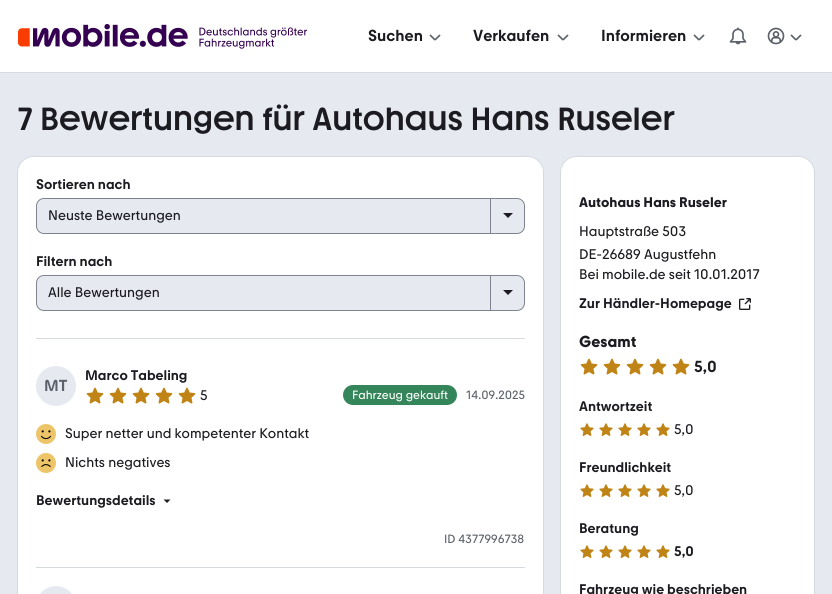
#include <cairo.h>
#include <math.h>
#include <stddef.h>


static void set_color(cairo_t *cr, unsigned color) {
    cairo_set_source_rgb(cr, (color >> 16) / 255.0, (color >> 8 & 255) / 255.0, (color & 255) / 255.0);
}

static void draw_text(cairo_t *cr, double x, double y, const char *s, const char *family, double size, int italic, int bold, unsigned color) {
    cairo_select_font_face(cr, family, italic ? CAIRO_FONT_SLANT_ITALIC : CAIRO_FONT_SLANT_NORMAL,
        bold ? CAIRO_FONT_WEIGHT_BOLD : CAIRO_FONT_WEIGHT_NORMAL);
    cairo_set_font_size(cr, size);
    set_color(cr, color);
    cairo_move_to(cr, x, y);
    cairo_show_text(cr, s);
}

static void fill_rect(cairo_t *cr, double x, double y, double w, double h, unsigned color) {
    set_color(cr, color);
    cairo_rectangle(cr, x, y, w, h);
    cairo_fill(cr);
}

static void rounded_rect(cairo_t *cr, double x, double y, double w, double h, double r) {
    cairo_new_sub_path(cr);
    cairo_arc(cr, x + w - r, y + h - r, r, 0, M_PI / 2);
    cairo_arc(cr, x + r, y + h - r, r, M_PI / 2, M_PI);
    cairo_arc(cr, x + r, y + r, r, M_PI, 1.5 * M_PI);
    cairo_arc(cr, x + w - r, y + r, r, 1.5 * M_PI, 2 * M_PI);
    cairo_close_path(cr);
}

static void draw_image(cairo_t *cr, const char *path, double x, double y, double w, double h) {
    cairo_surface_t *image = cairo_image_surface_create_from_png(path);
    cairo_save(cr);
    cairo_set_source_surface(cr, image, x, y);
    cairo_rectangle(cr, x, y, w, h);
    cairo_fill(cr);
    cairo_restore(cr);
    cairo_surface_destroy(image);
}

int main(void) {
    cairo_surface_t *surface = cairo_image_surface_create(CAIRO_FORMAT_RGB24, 832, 594);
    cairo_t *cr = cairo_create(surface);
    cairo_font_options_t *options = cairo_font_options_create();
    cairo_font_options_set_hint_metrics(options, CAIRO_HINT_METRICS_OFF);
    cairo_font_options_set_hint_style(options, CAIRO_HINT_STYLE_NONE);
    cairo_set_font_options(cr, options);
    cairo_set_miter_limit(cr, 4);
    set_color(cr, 0xE6EAF0);
    cairo_paint(cr);
    cairo_rectangle(cr, -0.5, -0.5, 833, 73);
    set_color(cr, 0xD5DAE0);
    cairo_set_line_width(cr, 1);
    cairo_stroke(cr);
    fill_rect(cr, 0, 0, 832, 72, 0xFFFFFF);
    draw_image(cr, "assets/img1.png", 18, 24, 290, 25);
    draw_text(cr, 368, 41, "Suchen", "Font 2 Medium", 16, 0, 0, 0x1B1B21);
    draw_image(cr, "assets/img2.png", 429, 34, 12, 7);
    draw_text(cr, 473, 41, "Verkaufen", "Font 2 Medium", 16, 0, 0, 0x1B1B21);
    draw_image(cr, "assets/img2.png", 557, 34, 12, 7);
    draw_text(cr, 601, 41, "Informieren", "Font 2 Medium", 16, 0, 0, 0x1B1B21);
    draw_image(cr, "assets/img2.png", 693, 34, 12, 7);
    draw_image(cr, "assets/img3.png", 729, 27, 18, 18);
    draw_image(cr, "assets/img4.png", 767, 27, 18, 18);
    draw_image(cr, "assets/img2.png", 790, 34, 12, 7);
    draw_text(cr, 18, 130, "7 Bewertungen für Autohaus Hans Ruseler", "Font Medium", 32, 0, 0, 0x1B1B21);
    rounded_rect(cr, 17.5, 156.5, 526, 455, 16.5);
    set_color(cr, 0xD5DAE0);
    cairo_stroke(cr);
    set_color(cr, 0xFFFFFF);
    rounded_rect(cr, 18, 157, 525, 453, 16);
    cairo_fill(cr);
    draw_text(cr, 36, 189, "Sortieren nach", "Font 2 Medium", 14, 0, 0, 0x1B1B21);
    set_color(cr, 0xE6EAF0);
    rounded_rect(cr, 36.5, 198.5, 488, 35, 7.5);
    cairo_fill_preserve(cr);
    set_color(cr, 0x7E838F);
    cairo_stroke(cr);
    draw_text(cr, 48, 220, "Neuste Bewertungen", "Font", 14, 0, 0, 0x1B1B21);
    fill_rect(cr, 490, 199, 1, 34, 0x7E838F);
    set_color(cr, 0x1B1B21);
    cairo_new_path(cr);
    cairo_move_to(cr, 503, 213);
    cairo_line_to(cr, 513, 213);
    cairo_line_to(cr, 508, 218);
    cairo_close_path(cr);
    cairo_fill(cr);
    draw_text(cr, 36, 266, "Filtern nach", "Font 2 Medium", 14, 0, 0, 0x1B1B21);
    set_color(cr, 0xE6EAF0);
    rounded_rect(cr, 36.5, 275.5, 488, 35, 7.5);
    cairo_fill_preserve(cr);
    set_color(cr, 0x7E838F);
    cairo_stroke(cr);
    draw_text(cr, 48, 297, "Alle Bewertungen", "Font", 14, 0, 0, 0x1B1B21);
    fill_rect(cr, 490, 276, 1, 34, 0x7E838F);
    set_color(cr, 0x1B1B21);
    cairo_new_path(cr);
    cairo_move_to(cr, 503, 290);
    cairo_line_to(cr, 513, 290);
    cairo_line_to(cr, 508, 295);
    cairo_close_path(cr);
    cairo_fill(cr);
    fill_rect(cr, 36, 338, 489, 1, 0xD5DAE0);
    fill_rect(cr, 36, 567, 489, 1, 0xD5DAE0);
    set_color(cr, 0xE6EAF0);
    cairo_arc(cr, 56, 386, 20, 0, 2 * M_PI);
    cairo_fill(cr);
    draw_text(cr, 44, 391, "MT", "Font 2 Medium", 16, 0, 0, 0x5D616B);
    draw_text(cr, 85, 380, "Marco Tabeling", "Font 2 Medium", 14, 0, 0, 0x1B1B21);
    draw_image(cr, "assets/img5.png", 86, 387, 18, 17);
    draw_image(cr, "assets/img5.png", 109, 387, 18, 17);
    draw_image(cr, "assets/img5.png", 132, 387, 18, 17);
    draw_image(cr, "assets/img5.png", 155, 387, 18, 17);
    draw_image(cr, "assets/img5.png", 178, 387, 18, 17);
    draw_text(cr, 200, 400, "5", "Font", 14, 0, 0, 0x1B1B21);
    set_color(cr, 0x35855A);
    rounded_rect(cr, 343, 385, 114, 20, 10);
    cairo_fill(cr);
    draw_text(cr, 352, 399, "Fahrzeug gekauft", "Font", 12, 0, 0, 0xFFFFFF);
    draw_text(cr, 466, 399, "14.09.2025", "Font", 12, 0, 0, 0x5D616B);
    draw_image(cr, "assets/img6.png", 36, 424, 20, 20);
    draw_text(cr, 65, 438, "Super netter und kompetenter Kontakt", "Font", 14, 0, 0, 0x1B1B21);
    draw_image(cr, "assets/img7.png", 36, 453, 20, 20);
    draw_text(cr, 65, 467, "Nichts negatives", "Font", 14, 0, 0, 0x1B1B21);
    draw_text(cr, 36, 505, "Bewertungsdetails", "Font 2 Medium", 14, 0, 0, 0x1B1B21);
    cairo_set_fill_rule(cr, CAIRO_FILL_RULE_EVEN_ODD);
    cairo_new_path(cr);
    cairo_move_to(cr, 163.5, 499.5);
    cairo_line_to(cr, 167, 503);
    cairo_line_to(cr, 170.5, 499.5);
    cairo_close_path(cr);
    cairo_fill(cr);
    draw_text(cr, 444, 543, "ID 4377996738", "Font", 12, 0, 0, 0x5D616B);
    set_color(cr, 0xE6EAF0);
    rounded_rect(cr, 36, 586, 40, 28, 20);
    cairo_fill(cr);
    rounded_rect(cr, 560.5, 156.5, 254, 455, 16.5);
    set_color(cr, 0xD5DAE0);
    cairo_stroke(cr);
    set_color(cr, 0xFFFFFF);
    rounded_rect(cr, 561, 157, 253, 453, 16);
    cairo_fill(cr);
    draw_text(cr, 579, 207, "Autohaus Hans Ruseler", "Font", 14, 0, 1, 0x1B1B21);
    draw_text(cr, 579, 236, "Hauptstraße 503", "Font", 14, 0, 0, 0x1B1B21);
    draw_text(cr, 579, 259, "DE-26689 Augustfehn", "Font", 14, 0, 0, 0x1B1B21);
    draw_text(cr, 579, 279, "Bei mobile.de seit 10.01.2017", "Font", 14, 0, 0, 0x1B1B21);
    draw_text(cr, 579, 308, "Zur Händler-Homepage", "Font 2 Medium", 14, 0, 0, 0x1B1B21);
    draw_image(cr, "assets/img8.png", 739, 298, 12, 12);
    draw_text(cr, 579, 347, "Gesamt", "Font", 16, 0, 1, 0x1B1B21);
    draw_image(cr, "assets/img5.png", 580, 358, 18, 17);
    draw_image(cr, "assets/img5.png", 603, 358, 18, 17);
    draw_image(cr, "assets/img5.png", 626, 358, 18, 17);
    draw_image(cr, "assets/img5.png", 649, 358, 18, 17);
    draw_image(cr, "assets/img5.png", 672, 358, 18, 17);
    draw_text(cr, 694, 372, "5,0", "Font 2 Medium", 16, 0, 0, 0x1B1B21);
    draw_text(cr, 579, 411, "Antwortzeit", "Font 2 Medium", 14, 0, 0, 0x1B1B21);
    draw_image(cr, "assets/img9.png", 580, 423, 14, 13);
    draw_image(cr, "assets/img9.png", 599, 423, 14, 13);
    draw_image(cr, "assets/img9.png", 618, 423, 14, 13);
    draw_image(cr, "assets/img9.png", 637, 423, 14, 13);
    draw_image(cr, "assets/img9.png", 656, 423, 14, 13);
    draw_text(cr, 674, 434, "5,0", "Font", 14, 0, 0, 0x1B1B21);
    draw_text(cr, 579, 472, "Freundlichkeit", "Font 2 Medium", 14, 0, 0, 0x1B1B21);
    draw_image(cr, "assets/img9.png", 580, 484, 14, 13);
    draw_image(cr, "assets/img9.png", 599, 484, 14, 13);
    draw_image(cr, "assets/img9.png", 618, 484, 14, 13);
    draw_image(cr, "assets/img9.png", 637, 484, 14, 13);
    draw_image(cr, "assets/img9.png", 656, 484, 14, 13);
    draw_text(cr, 674, 495, "5,0", "Font", 14, 0, 0, 0x1B1B21);
    draw_text(cr, 579, 533, "Beratung", "Font 2 Medium", 14, 0, 0, 0x1B1B21);
    draw_image(cr, "assets/img9.png", 580, 545, 14, 13);
    draw_image(cr, "assets/img9.png", 599, 545, 14, 13);
    draw_image(cr, "assets/img9.png", 618, 545, 14, 13);
    draw_image(cr, "assets/img9.png", 637, 545, 14, 13);
    draw_image(cr, "assets/img9.png", 656, 545, 14, 13);
    draw_text(cr, 674, 556, "5,0", "Font 2 Medium", 14, 0, 0, 0x1B1B21);
    draw_text(cr, 579, 594, "Fahrzeug wie beschrieben", "Font 2 Medium", 14, 0, 0, 0x1B1B21);
    cairo_surface_write_to_png(surface, "output.png");
    cairo_font_options_destroy(options);
    cairo_destroy(cr);
    cairo_surface_destroy(surface);
    return 0;
}
